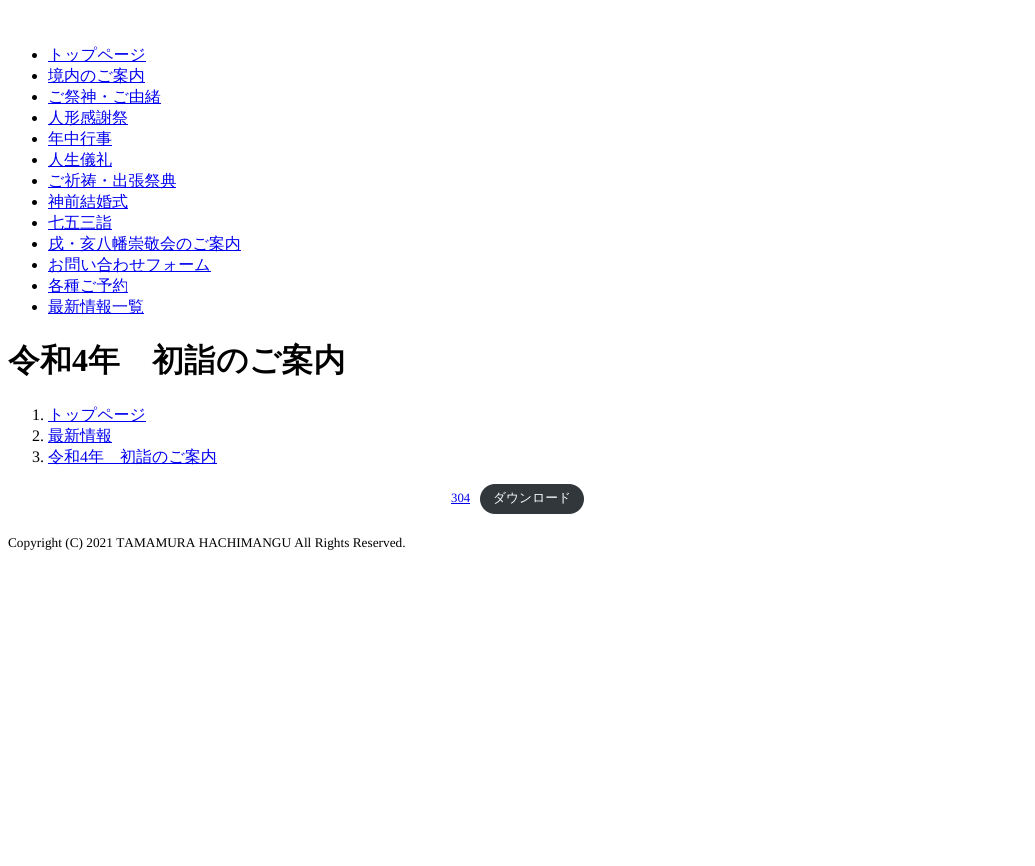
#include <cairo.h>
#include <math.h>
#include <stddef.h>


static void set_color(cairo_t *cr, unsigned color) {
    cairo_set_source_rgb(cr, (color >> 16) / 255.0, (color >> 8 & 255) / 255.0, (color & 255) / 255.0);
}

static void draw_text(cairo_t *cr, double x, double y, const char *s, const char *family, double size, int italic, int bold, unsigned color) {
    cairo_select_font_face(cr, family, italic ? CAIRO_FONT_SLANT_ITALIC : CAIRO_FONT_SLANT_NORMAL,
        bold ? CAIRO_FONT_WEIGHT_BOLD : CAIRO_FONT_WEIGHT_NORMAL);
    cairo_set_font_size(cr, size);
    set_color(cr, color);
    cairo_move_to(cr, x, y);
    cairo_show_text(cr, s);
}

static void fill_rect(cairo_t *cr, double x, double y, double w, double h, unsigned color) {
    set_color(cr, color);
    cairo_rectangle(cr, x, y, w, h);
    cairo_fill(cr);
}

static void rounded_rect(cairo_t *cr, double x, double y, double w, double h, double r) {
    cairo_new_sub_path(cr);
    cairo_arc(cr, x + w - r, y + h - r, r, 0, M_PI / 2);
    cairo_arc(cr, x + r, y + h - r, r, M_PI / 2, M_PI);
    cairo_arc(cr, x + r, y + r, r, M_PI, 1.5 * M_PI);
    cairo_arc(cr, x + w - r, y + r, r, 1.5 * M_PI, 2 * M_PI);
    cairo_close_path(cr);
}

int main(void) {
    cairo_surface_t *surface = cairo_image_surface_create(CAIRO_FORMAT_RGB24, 1035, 866);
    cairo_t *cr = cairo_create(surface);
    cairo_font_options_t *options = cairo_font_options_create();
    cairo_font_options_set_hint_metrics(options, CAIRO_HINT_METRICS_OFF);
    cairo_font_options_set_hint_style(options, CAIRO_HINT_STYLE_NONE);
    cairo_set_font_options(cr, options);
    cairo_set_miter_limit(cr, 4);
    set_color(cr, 0xFFFFFF);
    cairo_paint(cr);
    set_color(cr, 0x000000);
    cairo_arc(cr, 34.5, 55.5, 2.5, 0, 2 * M_PI);
    cairo_fill(cr);
    fill_rect(cr, 48, 61, 98, 1, 0x0000EE);
    draw_text(cr, 48, 60, "トップページ", "WenQuanYi Zen Hei Medium", 16, 0, 0, 0x0000EE);
    set_color(cr, 0x000000);
    cairo_new_path(cr);
    cairo_arc(cr, 34.5, 76.5, 2.5, 0, 2 * M_PI);
    cairo_fill(cr);
    fill_rect(cr, 48, 82, 97, 1, 0x0000EE);
    draw_text(cr, 48, 81, "境内のご案内", "WenQuanYi Zen Hei Medium", 16, 0, 0, 0x0000EE);
    set_color(cr, 0x000000);
    cairo_new_path(cr);
    cairo_arc(cr, 34.5, 97.5, 2.5, 0, 2 * M_PI);
    cairo_fill(cr);
    fill_rect(cr, 48, 103, 113, 1, 0x0000EE);
    draw_text(cr, 48, 102, "ご祭神・ご由緒", "WenQuanYi Zen Hei Medium", 16, 0, 0, 0x0000EE);
    set_color(cr, 0x000000);
    cairo_new_path(cr);
    cairo_arc(cr, 34.5, 118.5, 2.5, 0, 2 * M_PI);
    cairo_fill(cr);
    fill_rect(cr, 48, 124, 80, 1, 0x0000EE);
    draw_text(cr, 48, 123, "人形感謝祭", "WenQuanYi Zen Hei Medium", 16, 0, 0, 0x0000EE);
    set_color(cr, 0x000000);
    cairo_new_path(cr);
    cairo_arc(cr, 34.5, 139.5, 2.5, 0, 2 * M_PI);
    cairo_fill(cr);
    fill_rect(cr, 48, 145, 64, 1, 0x0000EE);
    draw_text(cr, 48, 144, "年中行事", "WenQuanYi Zen Hei Medium", 16, 0, 0, 0x0000EE);
    set_color(cr, 0x000000);
    cairo_new_path(cr);
    cairo_arc(cr, 34.5, 160.5, 2.5, 0, 2 * M_PI);
    cairo_fill(cr);
    fill_rect(cr, 48, 166, 64, 1, 0x0000EE);
    draw_text(cr, 48, 165, "人生儀礼", "WenQuanYi Zen Hei Medium", 16, 0, 0, 0x0000EE);
    set_color(cr, 0x000000);
    cairo_new_path(cr);
    cairo_arc(cr, 34.5, 181.5, 2.5, 0, 2 * M_PI);
    cairo_fill(cr);
    fill_rect(cr, 48, 187, 128, 1, 0x0000EE);
    draw_text(cr, 48, 186, "ご祈祷・出張祭典", "WenQuanYi Zen Hei Medium", 16, 0, 0, 0x0000EE);
    set_color(cr, 0x000000);
    cairo_new_path(cr);
    cairo_arc(cr, 34.5, 202.5, 2.5, 0, 2 * M_PI);
    cairo_fill(cr);
    fill_rect(cr, 48, 208, 80, 1, 0x0000EE);
    draw_text(cr, 48, 207, "神前結婚式", "WenQuanYi Zen Hei Medium", 16, 0, 0, 0x0000EE);
    set_color(cr, 0x000000);
    cairo_new_path(cr);
    cairo_arc(cr, 34.5, 223.5, 2.5, 0, 2 * M_PI);
    cairo_fill(cr);
    fill_rect(cr, 48, 229, 64, 1, 0x0000EE);
    draw_text(cr, 48, 228, "七五三詣", "WenQuanYi Zen Hei Medium", 16, 0, 0, 0x0000EE);
    set_color(cr, 0x000000);
    cairo_new_path(cr);
    cairo_arc(cr, 34.5, 244.5, 2.5, 0, 2 * M_PI);
    cairo_fill(cr);
    fill_rect(cr, 48, 250, 193, 1, 0x0000EE);
    draw_text(cr, 48, 249, "戌・亥八幡崇敬会のご案内", "WenQuanYi Zen Hei Medium", 16, 0, 0, 0x0000EE);
    set_color(cr, 0x000000);
    cairo_new_path(cr);
    cairo_arc(cr, 34.5, 265.5, 2.5, 0, 2 * M_PI);
    cairo_fill(cr);
    fill_rect(cr, 48, 271, 163, 1, 0x0000EE);
    draw_text(cr, 48, 270, "お問い合わせフォーム", "WenQuanYi Zen Hei Medium", 16, 0, 0, 0x0000EE);
    set_color(cr, 0x000000);
    cairo_new_path(cr);
    cairo_arc(cr, 34.5, 286.5, 2.5, 0, 2 * M_PI);
    cairo_fill(cr);
    fill_rect(cr, 48, 292, 80, 1, 0x0000EE);
    draw_text(cr, 48, 291, "各種ご予約", "WenQuanYi Zen Hei Medium", 16, 0, 0, 0x0000EE);
    set_color(cr, 0x000000);
    cairo_new_path(cr);
    cairo_arc(cr, 34.5, 307.5, 2.5, 0, 2 * M_PI);
    cairo_fill(cr);
    fill_rect(cr, 48, 313, 96, 1, 0x0000EE);
    draw_text(cr, 48, 312, "最新情報一覧", "WenQuanYi Zen Hei Medium", 16, 0, 0, 0x0000EE);
    draw_text(cr, 8, 371, "令和", "WenQuanYi Zen Hei", 32, 0, 1, 0x000000);
    draw_text(cr, 72, 371, "4", "Liberation Serif", 32, 0, 1, 0x000000);
    draw_text(cr, 88, 371, "年　初詣のご案内", "WenQuanYi Zen Hei", 32, 0, 1, 0x000000);
    draw_text(cr, 32, 420, "1.", "Liberation Serif", 16, 0, 0, 0x000000);
    fill_rect(cr, 48, 421, 98, 1, 0x0000EE);
    draw_text(cr, 48, 420, "トップページ", "WenQuanYi Zen Hei Medium", 16, 0, 0, 0x0000EE);
    draw_text(cr, 32, 441, "2.", "Liberation Serif", 16, 0, 0, 0x000000);
    fill_rect(cr, 48, 442, 64, 1, 0x0000EE);
    draw_text(cr, 48, 441, "最新情報", "WenQuanYi Zen Hei Medium", 16, 0, 0, 0x0000EE);
    draw_text(cr, 32, 462, "3.", "Liberation Serif", 16, 0, 0, 0x000000);
    fill_rect(cr, 48, 463, 169, 1, 0x0000EE);
    draw_text(cr, 48, 462, "令和", "WenQuanYi Zen Hei Medium", 16, 0, 0, 0x0000EE);
    draw_text(cr, 80, 462, "4", "Liberation Serif", 16, 0, 0, 0x0000EE);
    draw_text(cr, 88, 462, "年　初詣のご案内", "WenQuanYi Zen Hei Medium", 16, 0, 0, 0x0000EE);
    draw_text(cr, 451, 502, "304", "Liberation Serif", 12.75, 0, 0, 0x0000EE);
    fill_rect(cr, 451, 503, 19, 1, 0x0000EE);
    set_color(cr, 0x32373C);
    rounded_rect(cr, 480, 484, 104, 30, 15);
    cairo_fill(cr);
    draw_text(cr, 493, 502, "ダウンロード", "WenQuanYi Zen Hei Medium", 12.75, 0, 0, 0xFFFFFF);
    draw_text(cr, 8, 547, "Copyright (C) 2021 TAMAMURA HACHIMANGU All Rights Reserved.", "Liberation Serif", 13.3, 0, 0, 0x000000);
    cairo_surface_write_to_png(surface, "output.png");
    cairo_font_options_destroy(options);
    cairo_destroy(cr);
    cairo_surface_destroy(surface);
    return 0;
}
